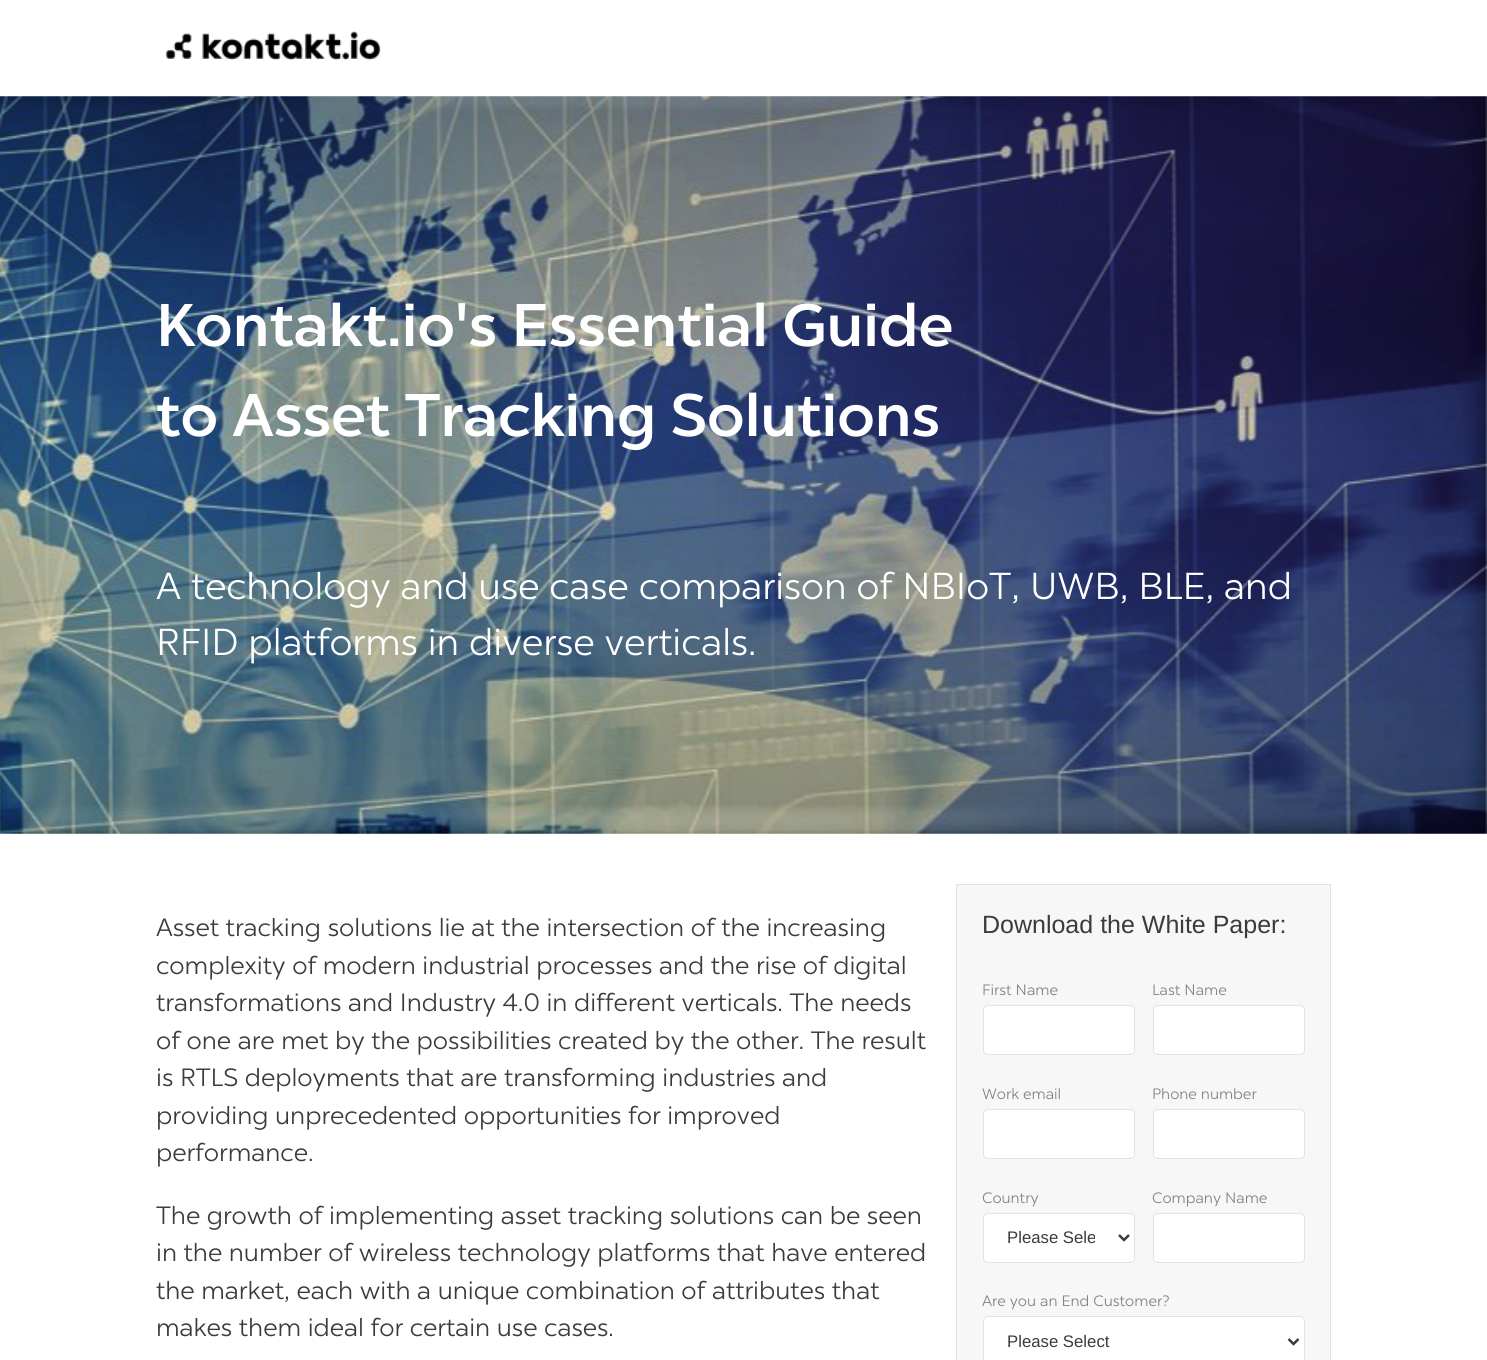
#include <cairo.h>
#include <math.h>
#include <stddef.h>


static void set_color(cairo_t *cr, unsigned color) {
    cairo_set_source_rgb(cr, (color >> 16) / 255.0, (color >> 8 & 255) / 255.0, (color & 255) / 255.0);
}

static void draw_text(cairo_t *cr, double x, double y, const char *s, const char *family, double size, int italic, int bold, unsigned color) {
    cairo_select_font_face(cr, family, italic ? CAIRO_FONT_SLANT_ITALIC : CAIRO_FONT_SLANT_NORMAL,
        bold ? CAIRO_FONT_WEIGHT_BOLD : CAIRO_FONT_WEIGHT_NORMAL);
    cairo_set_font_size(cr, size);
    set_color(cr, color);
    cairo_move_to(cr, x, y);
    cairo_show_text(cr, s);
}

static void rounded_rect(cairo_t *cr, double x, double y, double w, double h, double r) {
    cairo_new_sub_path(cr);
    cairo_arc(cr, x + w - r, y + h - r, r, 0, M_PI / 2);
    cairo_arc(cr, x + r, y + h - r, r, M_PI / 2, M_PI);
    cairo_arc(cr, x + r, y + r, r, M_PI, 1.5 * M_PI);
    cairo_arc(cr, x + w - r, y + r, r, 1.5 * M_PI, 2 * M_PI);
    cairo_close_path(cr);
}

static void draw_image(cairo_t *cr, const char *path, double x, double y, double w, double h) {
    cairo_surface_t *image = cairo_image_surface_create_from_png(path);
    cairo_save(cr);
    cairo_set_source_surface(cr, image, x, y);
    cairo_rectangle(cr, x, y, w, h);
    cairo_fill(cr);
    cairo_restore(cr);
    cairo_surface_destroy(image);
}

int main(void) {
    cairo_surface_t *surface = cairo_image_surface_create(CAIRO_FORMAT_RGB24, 1487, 1360);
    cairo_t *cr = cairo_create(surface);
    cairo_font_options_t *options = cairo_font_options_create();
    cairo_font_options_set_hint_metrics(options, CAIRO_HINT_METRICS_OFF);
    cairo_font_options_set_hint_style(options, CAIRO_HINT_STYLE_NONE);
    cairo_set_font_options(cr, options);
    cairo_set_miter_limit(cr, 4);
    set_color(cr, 0xFFFFFF);
    cairo_paint(cr);
    draw_image(cr, "assets/img1.png", 166, 31, 215, 30);
    draw_image(cr, "assets/img2.png", 0, 96, 1487, 738);
    draw_text(cr, 156, 346, "Kontakt.io's Essential Guide", "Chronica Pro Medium", 60, 0, 0, 0xFFFFFF);
    draw_text(cr, 156, 436, "to Asset Tracking Solutions", "Chronica Pro Medium", 60, 0, 0, 0xFFFFFF);
    draw_text(cr, 156, 599, "A technology and use case comparison of NBIoT, UWB, BLE, and", "Chronica Pro", 37.5, 0, 0, 0xFFFFFF);
    draw_text(cr, 156, 655, "RFID platforms in diverse verticals.", "Chronica Pro", 37.5, 0, 0, 0xFFFFFF);
    draw_text(cr, 156, 936, "Asset tracking solutions lie at the intersection of the increasing", "Chronica Pro", 25, 0, 0, 0x3C3B3A);
    draw_text(cr, 156, 974, "complexity of modern industrial processes and the rise of digital", "Chronica Pro", 25, 0, 0, 0x3C3B3A);
    draw_text(cr, 156, 1011, "transformations and Industry 4.0 in different verticals. The needs", "Chronica Pro", 25, 0, 0, 0x3C3B3A);
    draw_text(cr, 156, 1049, "of one are met by the possibilities created by the other. The result", "Chronica Pro", 25, 0, 0, 0x3C3B3A);
    draw_text(cr, 156, 1086, "is RTLS deployments that are transforming industries and", "Chronica Pro", 25, 0, 0, 0x3C3B3A);
    draw_text(cr, 156, 1124, "providing unprecedented opportunities for improved", "Chronica Pro", 25, 0, 0, 0x3C3B3A);
    draw_text(cr, 156, 1161, "performance.", "Chronica Pro", 25, 0, 0, 0x3C3B3A);
    draw_text(cr, 156, 1224, "The growth of implementing asset tracking solutions can be seen", "Chronica Pro", 25, 0, 0, 0x3C3B3A);
    draw_text(cr, 156, 1261, "in the number of wireless technology platforms that have entered", "Chronica Pro", 25, 0, 0, 0x3C3B3A);
    draw_text(cr, 156, 1299, "the market, each with a unique combination of attributes that", "Chronica Pro", 25, 0, 0, 0x3C3B3A);
    draw_text(cr, 156, 1336, "makes them ideal for certain use cases.", "Chronica Pro", 25, 0, 0, 0x3C3B3A);
    set_color(cr, 0xF7F7F7);
    cairo_rectangle(cr, 956.5, 884.5, 374, 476);
    cairo_fill_preserve(cr);
    set_color(cr, 0xE2E2E2);
    cairo_set_line_width(cr, 1);
    cairo_stroke(cr);
    draw_text(cr, 982, 933, "Download the White Paper:", "Liberation Sans", 25, 0, 0, 0x3C3B3A);
    draw_text(cr, 982, 995, "First Name", "Chronica Pro", 15, 0, 0, 0x818181);
    set_color(cr, 0xFFFFFF);
    rounded_rect(cr, 983.5, 1005.5, 151, 49, 4.5);
    cairo_fill_preserve(cr);
    set_color(cr, 0xE2E2E2);
    cairo_stroke(cr);
    draw_text(cr, 1152, 995, "Last Name", "Chronica Pro", 15, 0, 0, 0x818181);
    set_color(cr, 0xFFFFFF);
    rounded_rect(cr, 1153.5, 1005.5, 151, 49, 4.5);
    cairo_fill_preserve(cr);
    set_color(cr, 0xE2E2E2);
    cairo_stroke(cr);
    draw_text(cr, 982, 1099, "Work email", "Chronica Pro", 15, 0, 0, 0x818181);
    set_color(cr, 0xFFFFFF);
    rounded_rect(cr, 983.5, 1109.5, 151, 49, 4.5);
    cairo_fill_preserve(cr);
    set_color(cr, 0xE2E2E2);
    cairo_stroke(cr);
    draw_text(cr, 1152, 1099, "Phone number", "Chronica Pro", 15, 0, 0, 0x818181);
    set_color(cr, 0xFFFFFF);
    rounded_rect(cr, 1153.5, 1109.5, 151, 49, 4.5);
    cairo_fill_preserve(cr);
    set_color(cr, 0xE2E2E2);
    cairo_stroke(cr);
    draw_text(cr, 982, 1203, "Country", "Chronica Pro", 15, 0, 0, 0x818181);
    set_color(cr, 0xFFFFFF);
    rounded_rect(cr, 983.5, 1213.5, 151, 49, 4.5);
    cairo_fill_preserve(cr);
    set_color(cr, 0xE2E2E2);
    cairo_stroke(cr);
    cairo_new_path(cr);
    cairo_move_to(cr, 1119, 1235);
    cairo_line_to(cr, 1124, 1240);
    cairo_line_to(cr, 1129, 1235);
    set_color(cr, 0x3C3B3A);
    cairo_set_line_width(cr, 2.5);
    cairo_stroke(cr);
    cairo_save(cr);
    cairo_rectangle(cr, 1008, 1228, 87, 21);
    cairo_clip(cr);
    draw_text(cr, 1007, 1243, "Please Sele", "Liberation Sans", 16.75, 0, 0, 0x3C3B3A);
    cairo_restore(cr);
    draw_text(cr, 1152, 1203, "Company Name", "Chronica Pro", 15, 0, 0, 0x818181);
    set_color(cr, 0xFFFFFF);
    rounded_rect(cr, 1153.5, 1213.5, 151, 49, 4.5);
    cairo_fill_preserve(cr);
    set_color(cr, 0xE2E2E2);
    cairo_set_line_width(cr, 1);
    cairo_stroke(cr);
    draw_text(cr, 982, 1306, "Are you an End Customer?", "Chronica Pro", 15, 0, 0, 0x818181);
    set_color(cr, 0xFFFFFF);
    rounded_rect(cr, 983.5, 1316.5, 321, 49, 4.5);
    cairo_fill_preserve(cr);
    set_color(cr, 0xE2E2E2);
    cairo_stroke(cr);
    cairo_new_path(cr);
    cairo_move_to(cr, 1288.5, 1339);
    cairo_line_to(cr, 1293.5, 1344);
    cairo_line_to(cr, 1298.5, 1339);
    set_color(cr, 0x3C3B3A);
    cairo_set_line_width(cr, 2.5);
    cairo_stroke(cr);
    draw_text(cr, 1007, 1347, "Please Select", "Liberation Sans", 16.75, 0, 0, 0x3C3B3A);
    cairo_surface_write_to_png(surface, "output.png");
    cairo_font_options_destroy(options);
    cairo_destroy(cr);
    cairo_surface_destroy(surface);
    return 0;
}
